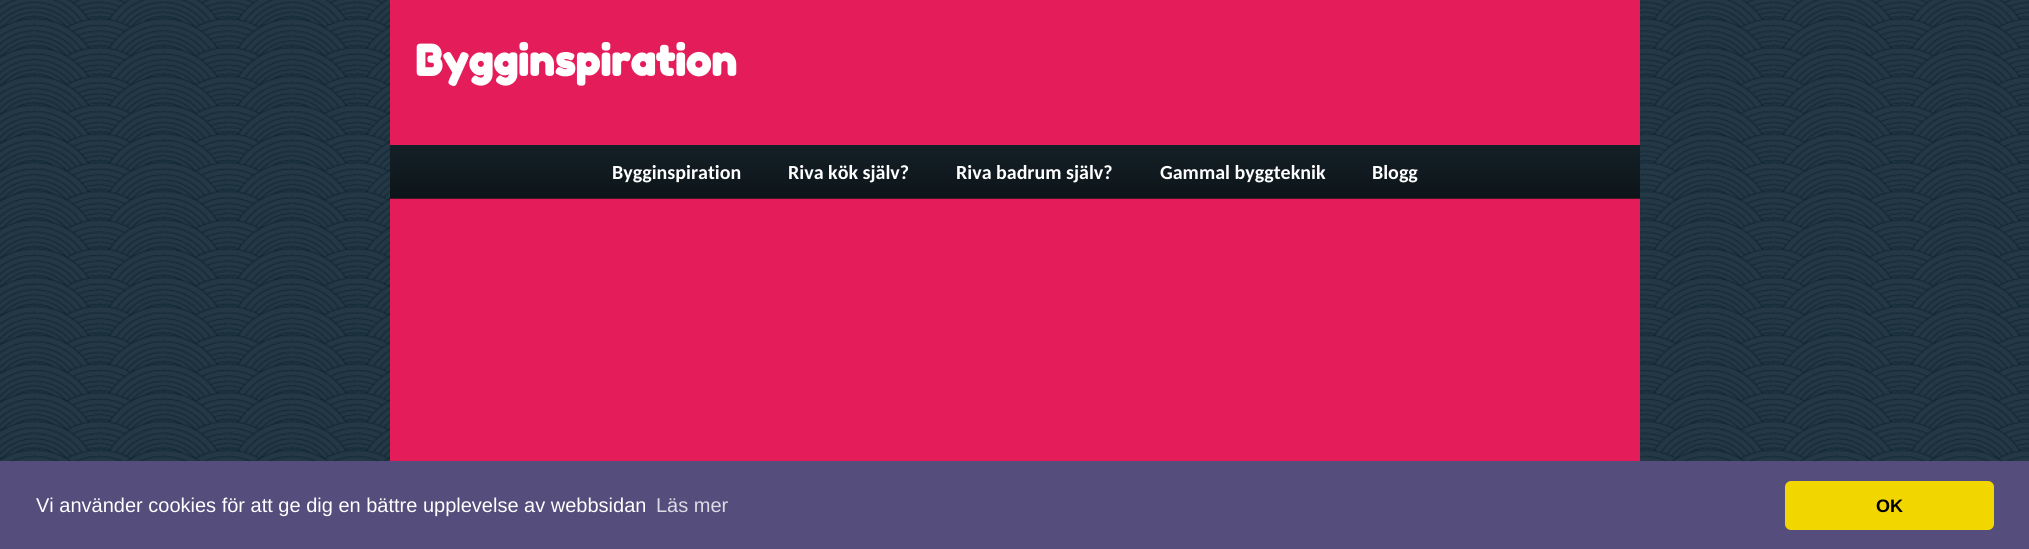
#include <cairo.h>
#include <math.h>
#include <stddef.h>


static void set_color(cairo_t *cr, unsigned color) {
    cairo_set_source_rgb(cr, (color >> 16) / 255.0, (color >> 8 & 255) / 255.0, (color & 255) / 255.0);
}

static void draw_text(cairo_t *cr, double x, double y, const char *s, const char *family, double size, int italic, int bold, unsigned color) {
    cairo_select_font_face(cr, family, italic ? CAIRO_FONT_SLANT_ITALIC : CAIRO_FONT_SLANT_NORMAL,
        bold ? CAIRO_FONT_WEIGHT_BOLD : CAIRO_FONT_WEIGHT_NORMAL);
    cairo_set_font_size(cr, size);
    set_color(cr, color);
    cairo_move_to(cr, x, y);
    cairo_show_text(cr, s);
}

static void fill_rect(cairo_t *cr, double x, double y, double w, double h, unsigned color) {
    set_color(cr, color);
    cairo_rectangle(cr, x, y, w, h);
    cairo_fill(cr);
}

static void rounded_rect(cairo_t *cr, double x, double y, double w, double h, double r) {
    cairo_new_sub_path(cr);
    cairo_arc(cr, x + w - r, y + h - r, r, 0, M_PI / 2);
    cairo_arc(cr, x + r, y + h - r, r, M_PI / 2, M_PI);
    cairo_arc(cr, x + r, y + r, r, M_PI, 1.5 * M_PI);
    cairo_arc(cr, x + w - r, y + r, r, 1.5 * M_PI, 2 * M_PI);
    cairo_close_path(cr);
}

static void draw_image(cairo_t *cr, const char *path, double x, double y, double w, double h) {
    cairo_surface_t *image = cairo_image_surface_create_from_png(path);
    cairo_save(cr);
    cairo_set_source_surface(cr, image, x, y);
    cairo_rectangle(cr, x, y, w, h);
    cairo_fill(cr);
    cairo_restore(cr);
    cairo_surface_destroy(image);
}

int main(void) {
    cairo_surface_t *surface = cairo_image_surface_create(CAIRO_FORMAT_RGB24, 2029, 549);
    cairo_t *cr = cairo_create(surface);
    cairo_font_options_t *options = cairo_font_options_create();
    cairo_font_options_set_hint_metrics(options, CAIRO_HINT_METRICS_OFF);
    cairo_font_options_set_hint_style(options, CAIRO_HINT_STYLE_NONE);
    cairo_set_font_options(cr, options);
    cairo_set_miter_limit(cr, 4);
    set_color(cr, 0xFFFFFF);
    cairo_paint(cr);
    draw_image(cr, "assets/img1.png", 0, 0, 2029, 461);
    fill_rect(cr, 390, 0, 1250, 461, 0xE41D5A);
    draw_text(cr, 415, 76, "Bygginspiration", "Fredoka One", 42.5, 0, 1, 0xFFFFFF);
    draw_image(cr, "assets/img2.png", 390, 145, 1250, 54);
    draw_text(cr, 612, 179, "Bygginspiration", "Carlito", 20, 0, 1, 0xFFFFFF);
    draw_text(cr, 788, 179, "Riva kök själv?", "Carlito", 20, 0, 1, 0xFFFFFF);
    draw_text(cr, 956, 179, "Riva badrum själv?", "Carlito", 20, 0, 1, 0xFFFFFF);
    draw_text(cr, 1160, 179, "Gammal byggteknik", "Carlito", 20, 0, 1, 0xFFFFFF);
    draw_text(cr, 1372, 179, "Blogg", "Carlito", 20, 0, 1, 0xFFFFFF);
    fill_rect(cr, 0, 461, 2029, 88, 0x554D7C);
    draw_text(cr, 36, 512, "Vi använder cookies för att ge dig en bättre upplevelse av webbsidan", "Liberation Sans", 20, 0, 0, 0xFFFFFF);
    draw_text(cr, 656, 512, "Läs mer", "Liberation Sans", 20, 0, 0, 0xDDDBE5);
    set_color(cr, 0xF1D600);
    rounded_rect(cr, 1785, 481, 209, 49, 6);
    cairo_fill(cr);
    draw_text(cr, 1876, 512, "OK", "Liberation Sans", 18, 0, 1, 0x000000);
    cairo_surface_write_to_png(surface, "output.png");
    cairo_font_options_destroy(options);
    cairo_destroy(cr);
    cairo_surface_destroy(surface);
    return 0;
}
